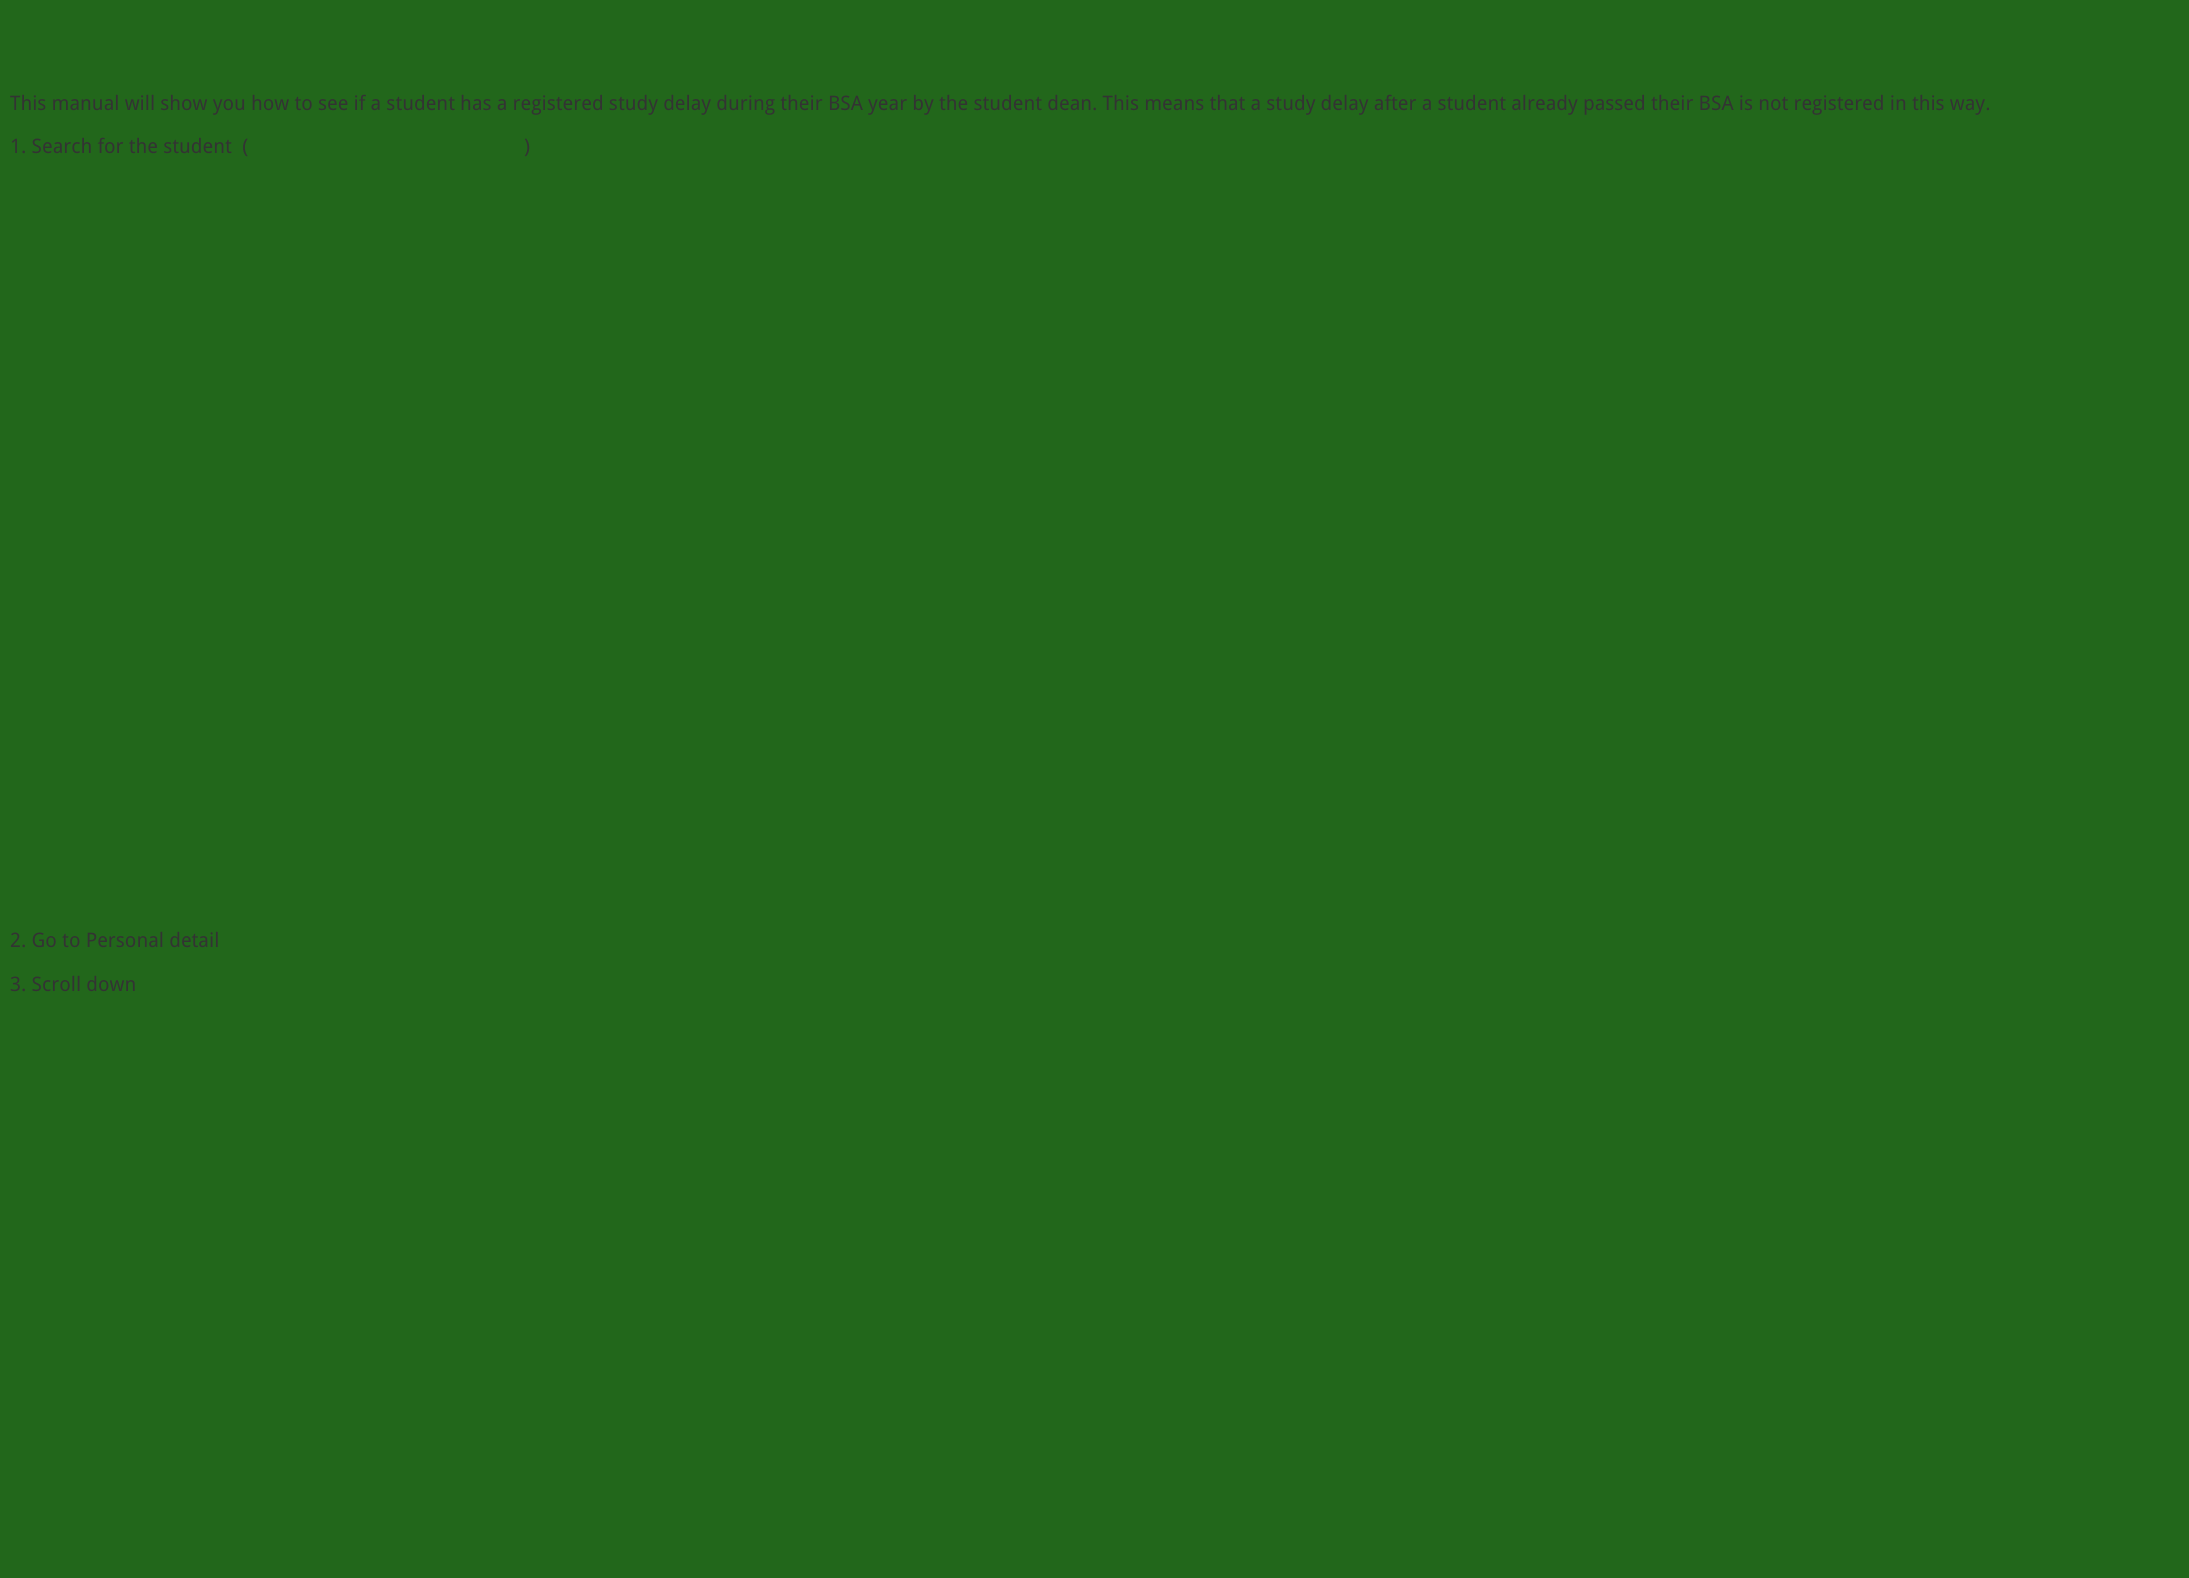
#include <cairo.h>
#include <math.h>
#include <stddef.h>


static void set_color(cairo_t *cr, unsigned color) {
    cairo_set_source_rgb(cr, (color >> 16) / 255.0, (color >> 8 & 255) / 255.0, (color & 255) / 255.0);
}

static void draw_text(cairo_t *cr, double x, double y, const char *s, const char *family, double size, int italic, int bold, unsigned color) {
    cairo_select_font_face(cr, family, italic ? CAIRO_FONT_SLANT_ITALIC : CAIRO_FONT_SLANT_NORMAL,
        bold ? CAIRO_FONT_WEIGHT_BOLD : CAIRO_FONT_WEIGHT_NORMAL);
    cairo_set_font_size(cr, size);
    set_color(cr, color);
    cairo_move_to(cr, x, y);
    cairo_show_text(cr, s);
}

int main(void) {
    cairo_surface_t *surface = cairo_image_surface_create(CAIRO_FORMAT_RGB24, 2189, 1578);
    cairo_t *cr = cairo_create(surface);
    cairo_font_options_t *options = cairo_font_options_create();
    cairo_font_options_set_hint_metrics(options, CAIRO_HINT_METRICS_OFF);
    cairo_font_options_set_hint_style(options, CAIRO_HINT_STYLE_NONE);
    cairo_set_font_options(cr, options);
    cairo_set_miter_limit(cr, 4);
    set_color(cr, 0x22671B);
    cairo_paint(cr);
    draw_text(cr, 10, 110, "This manual will show you how to see if a student has a registered study delay during their BSA year by the student dean. This means that a study delay after a student already passed their BSA is not registered in this way.", "Droid Sans", 20, 0, 0, 0x333333);
    draw_text(cr, 10, 153, "1. Search for the student  (", "Droid Sans", 20, 0, 0, 0x333333);
    draw_text(cr, 524, 153, ")", "Droid Sans", 20, 0, 0, 0x333333);
    draw_text(cr, 10, 947, "2. Go to Personal detail", "Droid Sans", 20, 0, 0, 0x333333);
    draw_text(cr, 10, 991, "3. Scroll down", "Droid Sans", 20, 0, 0, 0x333333);
    cairo_surface_write_to_png(surface, "output.png");
    cairo_font_options_destroy(options);
    cairo_destroy(cr);
    cairo_surface_destroy(surface);
    return 0;
}
